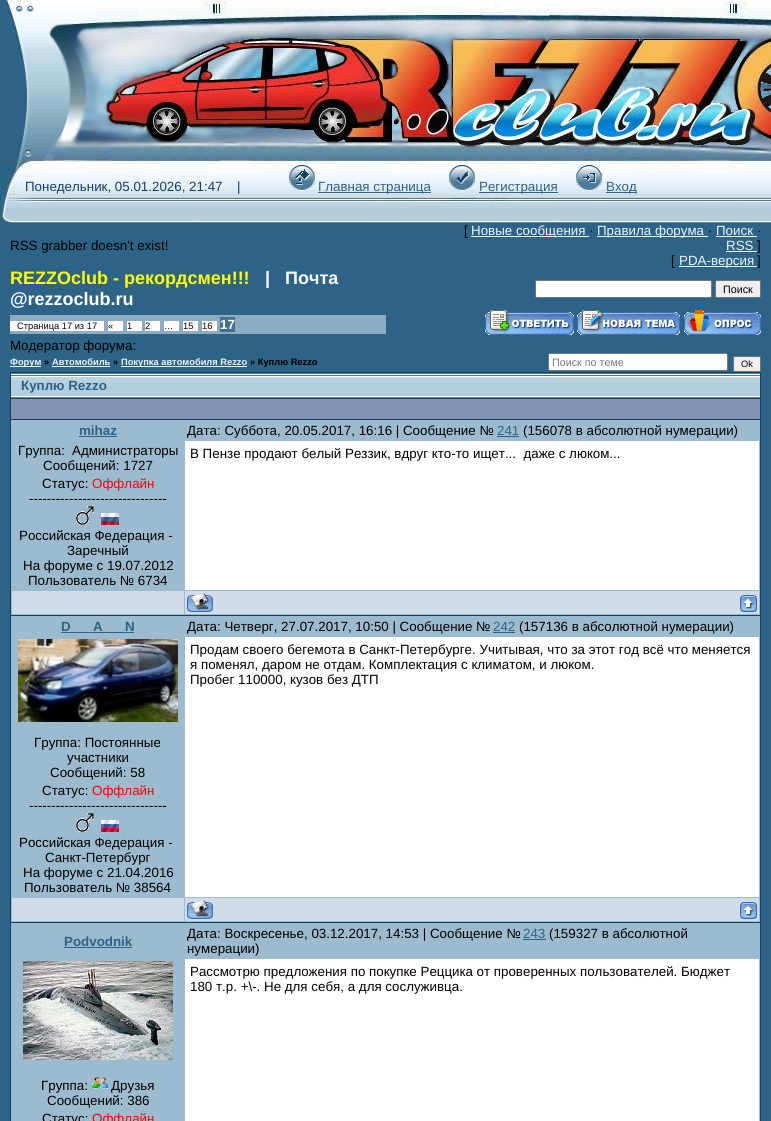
#include <cairo.h>
#include <math.h>
#include <stddef.h>


static void set_color(cairo_t *cr, unsigned color) {
    cairo_set_source_rgb(cr, (color >> 16) / 255.0, (color >> 8 & 255) / 255.0, (color & 255) / 255.0);
}

static void draw_text(cairo_t *cr, double x, double y, const char *s, const char *family, double size, int italic, int bold, unsigned color) {
    cairo_select_font_face(cr, family, italic ? CAIRO_FONT_SLANT_ITALIC : CAIRO_FONT_SLANT_NORMAL,
        bold ? CAIRO_FONT_WEIGHT_BOLD : CAIRO_FONT_WEIGHT_NORMAL);
    cairo_set_font_size(cr, size);
    set_color(cr, color);
    cairo_move_to(cr, x, y);
    cairo_show_text(cr, s);
}

static void fill_rect(cairo_t *cr, double x, double y, double w, double h, unsigned color) {
    set_color(cr, color);
    cairo_rectangle(cr, x, y, w, h);
    cairo_fill(cr);
}

static void rounded_rect(cairo_t *cr, double x, double y, double w, double h, double r) {
    cairo_new_sub_path(cr);
    cairo_arc(cr, x + w - r, y + h - r, r, 0, M_PI / 2);
    cairo_arc(cr, x + r, y + h - r, r, M_PI / 2, M_PI);
    cairo_arc(cr, x + r, y + r, r, M_PI, 1.5 * M_PI);
    cairo_arc(cr, x + w - r, y + r, r, 1.5 * M_PI, 2 * M_PI);
    cairo_close_path(cr);
}

static void draw_image(cairo_t *cr, const char *path, double x, double y, double w, double h) {
    cairo_surface_t *image = cairo_image_surface_create_from_png(path);
    cairo_save(cr);
    cairo_set_source_surface(cr, image, x, y);
    cairo_rectangle(cr, x, y, w, h);
    cairo_fill(cr);
    cairo_restore(cr);
    cairo_surface_destroy(image);
}

int main(void) {
    cairo_surface_t *surface = cairo_image_surface_create(CAIRO_FORMAT_RGB24, 771, 1121);
    cairo_t *cr = cairo_create(surface);
    cairo_font_options_t *options = cairo_font_options_create();
    cairo_font_options_set_hint_metrics(options, CAIRO_HINT_METRICS_OFF);
    cairo_font_options_set_hint_style(options, CAIRO_HINT_STYLE_NONE);
    cairo_set_font_options(cr, options);
    cairo_set_miter_limit(cr, 4);
    set_color(cr, 0x2D6386);
    cairo_paint(cr);
    draw_image(cr, "assets/img1.png", 0, 0, 93, 160);
    draw_image(cr, "assets/img2.png", 93, 0, 678, 160);
    draw_image(cr, "assets/img3.png", 0, 160, 771, 38);
    draw_text(cr, 25, 191, "Понедельник, 05.01.2026, 21:47", "Liberation Sans", 13.35, 0, 0, 0x143E61);
    draw_text(cr, 237, 191, "|", "Liberation Sans", 13.35, 0, 0, 0x143E61);
    draw_image(cr, "assets/img4.png", 289, 165, 26, 26);
    fill_rect(cr, 318, 192, 113, 1, 0x2D6386);
    draw_text(cr, 318, 191, "Главная страница", "Liberation Sans", 13.35, 0, 0, 0x2D6386);
    draw_image(cr, "assets/img5.png", 449, 165, 26, 26);
    fill_rect(cr, 479, 192, 79, 1, 0x2D6386);
    draw_text(cr, 479, 191, "Регистрация", "Liberation Sans", 13.35, 0, 0, 0x2D6386);
    draw_image(cr, "assets/img6.png", 576, 165, 26, 26);
    fill_rect(cr, 606, 192, 31, 1, 0x2D6386);
    draw_text(cr, 606, 191, "Вход", "Liberation Sans", 13.35, 0, 0, 0x2D6386);
    draw_image(cr, "assets/img7.png", 0, 198, 771, 25);
    draw_text(cr, 10, 250, "RSS grabber doesn't exist!", "Liberation Sans", 13.35, 0, 0, 0x000000);
    draw_text(cr, 464, 235, "[", "Liberation Sans", 13.35, 0, 0, 0x000000);
    fill_rect(cr, 471, 236, 118, 1, 0xEBF4F9);
    draw_text(cr, 471, 235, "Новые сообщения", "Liberation Sans", 13.35, 0, 0, 0xEBF4F9);
    draw_text(cr, 589, 235, "·", "Liberation Sans", 13.35, 0, 0, 0x000000);
    fill_rect(cr, 597, 236, 111, 1, 0xEBF4F9);
    draw_text(cr, 597, 235, "Правила форума", "Liberation Sans", 13.35, 0, 0, 0xEBF4F9);
    draw_text(cr, 708, 235, "·", "Liberation Sans", 13.35, 0, 0, 0x000000);
    draw_text(cr, 716, 235, "Поиск", "Liberation Sans", 13.35, 0, 0, 0xEBF4F9);
    fill_rect(cr, 716, 236, 41, 1, 0xEBF4F9);
    draw_text(cr, 757, 235, "·", "Liberation Sans", 13.35, 0, 0, 0x000000);
    draw_text(cr, 726, 250, "RSS", "Liberation Sans", 13.35, 0, 0, 0xEBF4F9);
    fill_rect(cr, 726, 251, 31, 1, 0xEBF4F9);
    draw_text(cr, 757, 250, "]", "Liberation Sans", 13.35, 0, 0, 0x000000);
    draw_text(cr, 671, 265, "[", "Liberation Sans", 13.35, 0, 0, 0x000000);
    fill_rect(cr, 679, 266, 78, 1, 0xEBF4F9);
    draw_text(cr, 679, 265, "PDA-версия", "Liberation Sans", 13.35, 0, 0, 0xEBF4F9);
    draw_text(cr, 757, 265, "]", "Liberation Sans", 13.35, 0, 0, 0x000000);
    draw_text(cr, 10, 284, "REZZOclub - рекордсмен!!!", "Liberation Sans", 18, 0, 1, 0xFFFF00);
    draw_text(cr, 265, 284, "|", "Liberation Sans", 18, 0, 1, 0xFFFFFF);
    draw_text(cr, 285, 284, "Почта", "Liberation Sans", 18, 0, 1, 0xFFFFFF);
    draw_text(cr, 10, 305, "@rezzoclub.ru", "Liberation Sans", 18, 0, 1, 0xFFFFFF);
    rounded_rect(cr, 535.5, 280.5, 176, 17, 1.5);
    cairo_fill_preserve(cr);
    set_color(cr, 0x767676);
    cairo_set_line_width(cr, 1);
    cairo_stroke(cr);
    set_color(cr, 0xEFEFEF);
    rounded_rect(cr, 715.5, 280.5, 45, 17, 1.5);
    cairo_fill_preserve(cr);
    set_color(cr, 0x767676);
    cairo_stroke(cr);
    draw_text(cr, 723, 293, "Поиск", "Liberation Sans", 10.75, 0, 0, 0x000000);
    fill_rect(cr, 10, 315, 376, 19, 0x8DACC2);
    fill_rect(cr, 10, 321, 94, 10, 0xFFFFFF);
    draw_text(cr, 17, 329, "Страница 17 из 17", "Liberation Sans", 9.3, 0, 0, 0x000000);
    fill_rect(cr, 108, 321, 15, 10, 0xFFFFFF);
    draw_text(cr, 108, 329, "«", "Liberation Sans", 9.3, 0, 0, 0x000000);
    fill_rect(cr, 127, 321, 15, 10, 0xFFFFFF);
    draw_text(cr, 127, 329, "1", "Liberation Sans", 9.3, 0, 0, 0x000000);
    fill_rect(cr, 145, 321, 15, 10, 0xFFFFFF);
    draw_text(cr, 145, 329, "2", "Liberation Sans", 9.3, 0, 0, 0x000000);
    fill_rect(cr, 164, 321, 15, 10, 0xFFFFFF);
    draw_text(cr, 164, 329, "…", "Liberation Sans", 9.3, 0, 0, 0x000000);
    fill_rect(cr, 183, 321, 15, 10, 0xFFFFFF);
    draw_text(cr, 183, 329, "15", "Liberation Sans", 9.3, 0, 0, 0x000000);
    fill_rect(cr, 202, 321, 15, 10, 0xFFFFFF);
    draw_text(cr, 202, 329, "16", "Liberation Sans", 9.3, 0, 0, 0x000000);
    fill_rect(cr, 220, 317, 15, 15, 0x446F91);
    draw_text(cr, 220, 329, "17", "Liberation Sans", 13.35, 0, 1, 0xFFFFFF);
    draw_image(cr, "assets/img8.png", 485, 310, 89, 25);
    draw_image(cr, "assets/img9.png", 577, 310, 103, 25);
    draw_image(cr, "assets/img10.png", 684, 310, 77, 25);
    draw_text(cr, 10, 350, "Модератор форума:", "Liberation Sans", 13.35, 0, 0, 0x000000);
    fill_rect(cr, 10, 366, 31, 1, 0xEBF4F9);
    draw_text(cr, 10, 365, "Форум", "Liberation Sans", 9.3, 0, 1, 0xEBF4F9);
    draw_text(cr, 44, 365, "»", "Liberation Sans", 9.3, 0, 1, 0x000000);
    draw_text(cr, 52, 365, "Автомобиль", "Liberation Sans", 9.3, 0, 1, 0xEBF4F9);
    fill_rect(cr, 52, 366, 58, 1, 0xEBF4F9);
    draw_text(cr, 113, 365, "»", "Liberation Sans", 9.3, 0, 1, 0x000000);
    fill_rect(cr, 121, 366, 126, 1, 0xEBF4F9);
    draw_text(cr, 121, 365, "Покупка автомобиля Rezzo", "Liberation Sans", 9.3, 0, 1, 0xEBF4F9);
    draw_text(cr, 250, 365, "» Куплю Rezzo", "Liberation Sans", 9.3, 0, 1, 0x000000);
    set_color(cr, 0xFFFFFF);
    rounded_rect(cr, 548.5, 353.5, 179, 17, 1.5);
    cairo_fill_preserve(cr);
    set_color(cr, 0x767676);
    cairo_stroke(cr);
    draw_text(cr, 552, 366, "Поиск по теме", "Liberation Sans", 10.75, 0, 0, 0x757575);
    set_color(cr, 0xEFEFEF);
    rounded_rect(cr, 733.5, 356.5, 27, 15, 1.5);
    cairo_fill_preserve(cr);
    set_color(cr, 0x767676);
    cairo_stroke(cr);
    draw_text(cr, 741, 367, "Ok", "Liberation Sans", 9.3, 0, 0, 0x000000);
    fill_rect(cr, 10, 372, 751, 749, 0x0C4162);
    draw_image(cr, "assets/img11.png", 11, 373, 749, 25);
    draw_text(cr, 21, 390, "Куплю Rezzo", "Liberation Sans", 13.35, 0, 1, 0x2D6386);
    fill_rect(cr, 11, 399, 749, 20, 0x8394B2);
    fill_rect(cr, 11, 420, 749, 195, 0x9DBBCF);
    draw_text(cr, 79, 435, "mihaz", "Liberation Sans", 13.35, 0, 1, 0x2D6386);
    fill_rect(cr, 79, 436, 38, 1, 0x2D6386);
    draw_text(cr, 187, 435, "Дата: Суббота, 20.05.2017, 16:16 | Сообщение №", "Liberation Sans", 13.35, 0, 0, 0x000000);
    draw_text(cr, 497, 435, "241", "Liberation Sans", 13.35, 0, 0, 0x2D6386);
    fill_rect(cr, 497, 436, 22, 1, 0x2D6386);
    draw_text(cr, 523, 435, "(156078 в абсолютной нумерации)", "Liberation Sans", 13.35, 0, 0, 0x000000);
    draw_text(cr, 18, 455, "Группа:", "Liberation Sans", 13.35, 0, 0, 0x000000);
    draw_text(cr, 72, 455, "Администраторы", "Liberation Sans", 13.35, 0, 0, 0x000000);
    draw_text(cr, 43, 470, "Сообщений: 1727", "Liberation Sans", 13.35, 0, 0, 0x000000);
    draw_text(cr, 42, 488, "Статус:", "Liberation Sans", 13.35, 0, 0, 0x000000);
    draw_text(cr, 92, 488, "Оффлайн", "Liberation Sans", 13.35, 0, 0, 0xFF0000);
    draw_text(cr, 29, 503, "-------------------------------", "Liberation Sans", 13.35, 0, 0, 0x000000);
    draw_image(cr, "assets/img12.png", 76, 506, 18, 19);
    draw_image(cr, "assets/img13.png", 101, 513, 18, 12);
    draw_text(cr, 19, 540, "Российская Федерация -", "Liberation Sans", 13.35, 0, 0, 0x000000);
    draw_text(cr, 67, 555, "Заречный", "Liberation Sans", 13.35, 0, 0, 0x000000);
    draw_text(cr, 23, 570, "На форуме с 19.07.2012", "Liberation Sans", 13.35, 0, 0, 0x000000);
    draw_text(cr, 28, 585, "Пользователь № 6734", "Liberation Sans", 13.35, 0, 0, 0x000000);
    fill_rect(cr, 185, 441, 574, 149, 0xFFFFFF);
    draw_text(cr, 190, 458, "В Пензе продают белый Реззик, вдруг кто-то ищет...  даже с люком...", "Liberation Sans", 13.35, 0, 0, 0x000000);
    fill_rect(cr, 12, 591, 172, 23, 0xD1DCEB);
    fill_rect(cr, 185, 591, 574, 23, 0xD1DCEB);
    draw_image(cr, "assets/img14.png", 187, 593, 26, 19);
    draw_image(cr, "assets/img15.png", 740, 595, 17, 17);
    fill_rect(cr, 11, 616, 749, 306, 0x9DBBCF);
    draw_text(cr, 61, 631, "D", "Liberation Sans", 13.35, 0, 1, 0x2D6386);
    fill_rect(cr, 61, 632, 73, 1, 0x2D6386);
    draw_text(cr, 93, 631, "A", "Liberation Sans", 13.35, 0, 1, 0x2D6386);
    draw_text(cr, 125, 631, "N", "Liberation Sans", 13.35, 0, 1, 0x2D6386);
    draw_text(cr, 187, 631, "Дата: Четверг, 27.07.2017, 10:50 | Сообщение №", "Liberation Sans", 13.35, 0, 0, 0x000000);
    draw_text(cr, 493, 631, "242", "Liberation Sans", 13.35, 0, 0, 0x2D6386);
    fill_rect(cr, 493, 632, 22, 1, 0x2D6386);
    draw_text(cr, 519, 631, "(157136 в абсолютной нумерации)", "Liberation Sans", 13.35, 0, 0, 0x000000);
    fill_rect(cr, 185, 637, 574, 260, 0xFFFFFF);
    draw_text(cr, 190, 654, "Продам своего бегемота в Санкт-Петербурге. Учитывая, что за этот год всё что меняется", "Liberation Sans", 13.35, 0, 0, 0x000000);
    draw_text(cr, 190, 669, "я поменял, даром не отдам. Комплектация с климатом, и люком.", "Liberation Sans", 13.35, 0, 0, 0x000000);
    draw_text(cr, 190, 684, "Пробег 110000, кузов без ДТП", "Liberation Sans", 13.35, 0, 0, 0x000000);
    draw_image(cr, "assets/img16.png", 18, 639, 160, 83);
    draw_text(cr, 34, 747, "Группа: Постоянные", "Liberation Sans", 13.35, 0, 0, 0x000000);
    draw_text(cr, 67, 762, "участники", "Liberation Sans", 13.35, 0, 0, 0x000000);
    draw_text(cr, 50, 777, "Сообщений: 58", "Liberation Sans", 13.35, 0, 0, 0x000000);
    draw_text(cr, 42, 795, "Статус:", "Liberation Sans", 13.35, 0, 0, 0x000000);
    draw_text(cr, 92, 795, "Оффлайн", "Liberation Sans", 13.35, 0, 0, 0xFF0000);
    draw_text(cr, 29, 810, "-------------------------------", "Liberation Sans", 13.35, 0, 0, 0x000000);
    draw_image(cr, "assets/img12.png", 76, 813, 18, 19);
    draw_image(cr, "assets/img13.png", 101, 820, 18, 12);
    draw_text(cr, 19, 847, "Российская Федерация -", "Liberation Sans", 13.35, 0, 0, 0x000000);
    draw_text(cr, 45, 862, "Санкт-Петербург", "Liberation Sans", 13.35, 0, 0, 0x000000);
    draw_text(cr, 23, 877, "На форуме с 21.04.2016", "Liberation Sans", 13.35, 0, 0, 0x000000);
    draw_text(cr, 24, 892, "Пользователь № 38564", "Liberation Sans", 13.35, 0, 0, 0x000000);
    fill_rect(cr, 12, 898, 172, 23, 0xD1DCEB);
    fill_rect(cr, 185, 898, 574, 23, 0xD1DCEB);
    draw_image(cr, "assets/img14.png", 187, 900, 26, 19);
    draw_image(cr, "assets/img15.png", 740, 902, 17, 17);
    fill_rect(cr, 11, 923, 749, 198, 0x9DBBCF);
    draw_text(cr, 64, 946, "Podvodnik", "Liberation Sans", 13.35, 0, 1, 0x2D6386);
    fill_rect(cr, 64, 947, 68, 1, 0x2D6386);
    draw_text(cr, 187, 938, "Дата: Воскресенье, 03.12.2017, 14:53 | Сообщение №", "Liberation Sans", 13.35, 0, 0, 0x000000);
    draw_text(cr, 523, 938, "243", "Liberation Sans", 13.35, 0, 0, 0x2D6386);
    fill_rect(cr, 523, 939, 23, 1, 0x2D6386);
    draw_text(cr, 549, 938, "(159327 в абсолютной", "Liberation Sans", 13.35, 0, 0, 0x000000);
    draw_text(cr, 187, 953, "нумерации)", "Liberation Sans", 13.35, 0, 0, 0x000000);
    fill_rect(cr, 185, 959, 574, 162, 0xFFFFFF);
    draw_text(cr, 190, 976, "Рассмотрю предложения по покупке Реццика от проверенных пользователей. Бюджет", "Liberation Sans", 13.35, 0, 0, 0x000000);
    draw_text(cr, 190, 991, "180 т.р. +\\-. Не для себя, а для сослуживца.", "Liberation Sans", 13.35, 0, 0, 0x000000);
    draw_image(cr, "assets/img17.png", 23, 961, 150, 99);
    draw_text(cr, 41, 1090, "Группа:", "Liberation Sans", 13.35, 0, 0, 0x000000);
    draw_image(cr, "assets/img18.png", 92, 1077, 16, 12);
    draw_text(cr, 111, 1090, "Друзья", "Liberation Sans", 13.35, 0, 0, 0x000000);
    draw_text(cr, 47, 1105, "Сообщений: 386", "Liberation Sans", 13.35, 0, 0, 0x000000);
    draw_text(cr, 42, 1123, "Статус:", "Liberation Sans", 13.35, 0, 0, 0x000000);
    draw_text(cr, 92, 1123, "Оффлайн", "Liberation Sans", 13.35, 0, 0, 0xFF0000);
    cairo_surface_write_to_png(surface, "output.png");
    cairo_font_options_destroy(options);
    cairo_destroy(cr);
    cairo_surface_destroy(surface);
    return 0;
}
